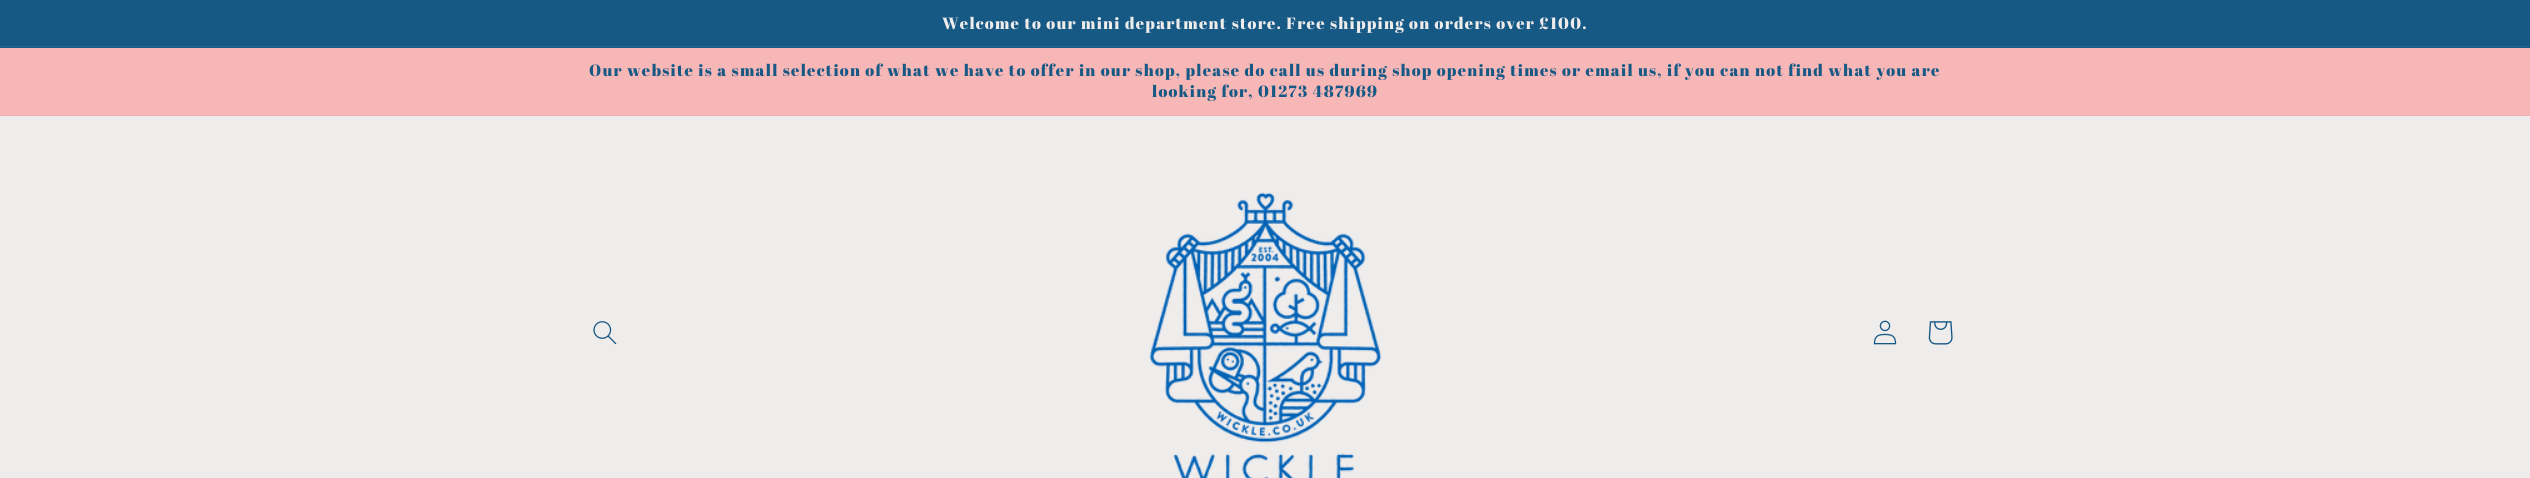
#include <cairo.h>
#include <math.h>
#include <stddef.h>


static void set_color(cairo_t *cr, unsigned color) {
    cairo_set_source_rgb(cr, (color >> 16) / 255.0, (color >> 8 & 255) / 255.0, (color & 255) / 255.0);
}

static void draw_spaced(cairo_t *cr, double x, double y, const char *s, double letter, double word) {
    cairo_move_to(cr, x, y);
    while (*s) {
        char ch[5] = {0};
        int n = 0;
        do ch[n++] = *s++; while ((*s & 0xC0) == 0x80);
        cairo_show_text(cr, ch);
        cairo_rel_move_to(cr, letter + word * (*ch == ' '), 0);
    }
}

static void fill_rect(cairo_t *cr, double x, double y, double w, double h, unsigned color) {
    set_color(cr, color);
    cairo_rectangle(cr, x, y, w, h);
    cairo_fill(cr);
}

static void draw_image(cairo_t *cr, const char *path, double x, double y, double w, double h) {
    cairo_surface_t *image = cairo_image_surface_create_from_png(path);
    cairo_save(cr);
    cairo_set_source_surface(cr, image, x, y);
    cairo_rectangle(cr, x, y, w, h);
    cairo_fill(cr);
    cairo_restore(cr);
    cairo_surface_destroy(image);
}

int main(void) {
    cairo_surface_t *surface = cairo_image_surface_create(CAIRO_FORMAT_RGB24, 2530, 478);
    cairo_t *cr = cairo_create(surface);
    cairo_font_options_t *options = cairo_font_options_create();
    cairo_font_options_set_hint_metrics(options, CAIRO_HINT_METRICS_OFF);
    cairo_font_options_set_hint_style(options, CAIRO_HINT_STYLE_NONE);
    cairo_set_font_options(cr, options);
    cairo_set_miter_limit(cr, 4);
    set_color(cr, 0xEFECEC);
    cairo_paint(cr);
    fill_rect(cr, 0, 0, 2530, 48, 0x175985);
    fill_rect(cr, 0, 46, 2530, 1, 0x28658D);
    cairo_select_font_face(cr, "Abril Fatface", CAIRO_FONT_SLANT_NORMAL, CAIRO_FONT_WEIGHT_NORMAL);
    cairo_set_font_size(cr, 16.25);
    set_color(cr, 0xEFECEC);
    draw_spaced(cr, 942, 29, "Welcome to our mini department store. Free shipping on orders over £100.", 1.25, 0);
    fill_rect(cr, 0, 48, 2530, 67, 0xF7B7B7);
    fill_rect(cr, 0, 115, 2530, 1, 0xE5AFB3);
    set_color(cr, 0x175985);
    draw_spaced(cr, 589, 76, "Our website is a small selection of what we have to offer in our shop, please do call us during shop opening times or email us, if you can not find what you are", 1.25, 0);
    draw_spaced(cr, 1152, 97, "looking for, 01273 487969", 1.25, 0);
    draw_image(cr, "assets/img1.png", 593, 321, 24, 24);
    draw_image(cr, "assets/img2.png", 1149, 192, 233, 286);
    draw_image(cr, "assets/img3.png", 1873, 320, 24, 25);
    draw_image(cr, "assets/img4.png", 1928, 321, 25, 24);
    cairo_surface_write_to_png(surface, "output.png");
    cairo_font_options_destroy(options);
    cairo_destroy(cr);
    cairo_surface_destroy(surface);
    return 0;
}
